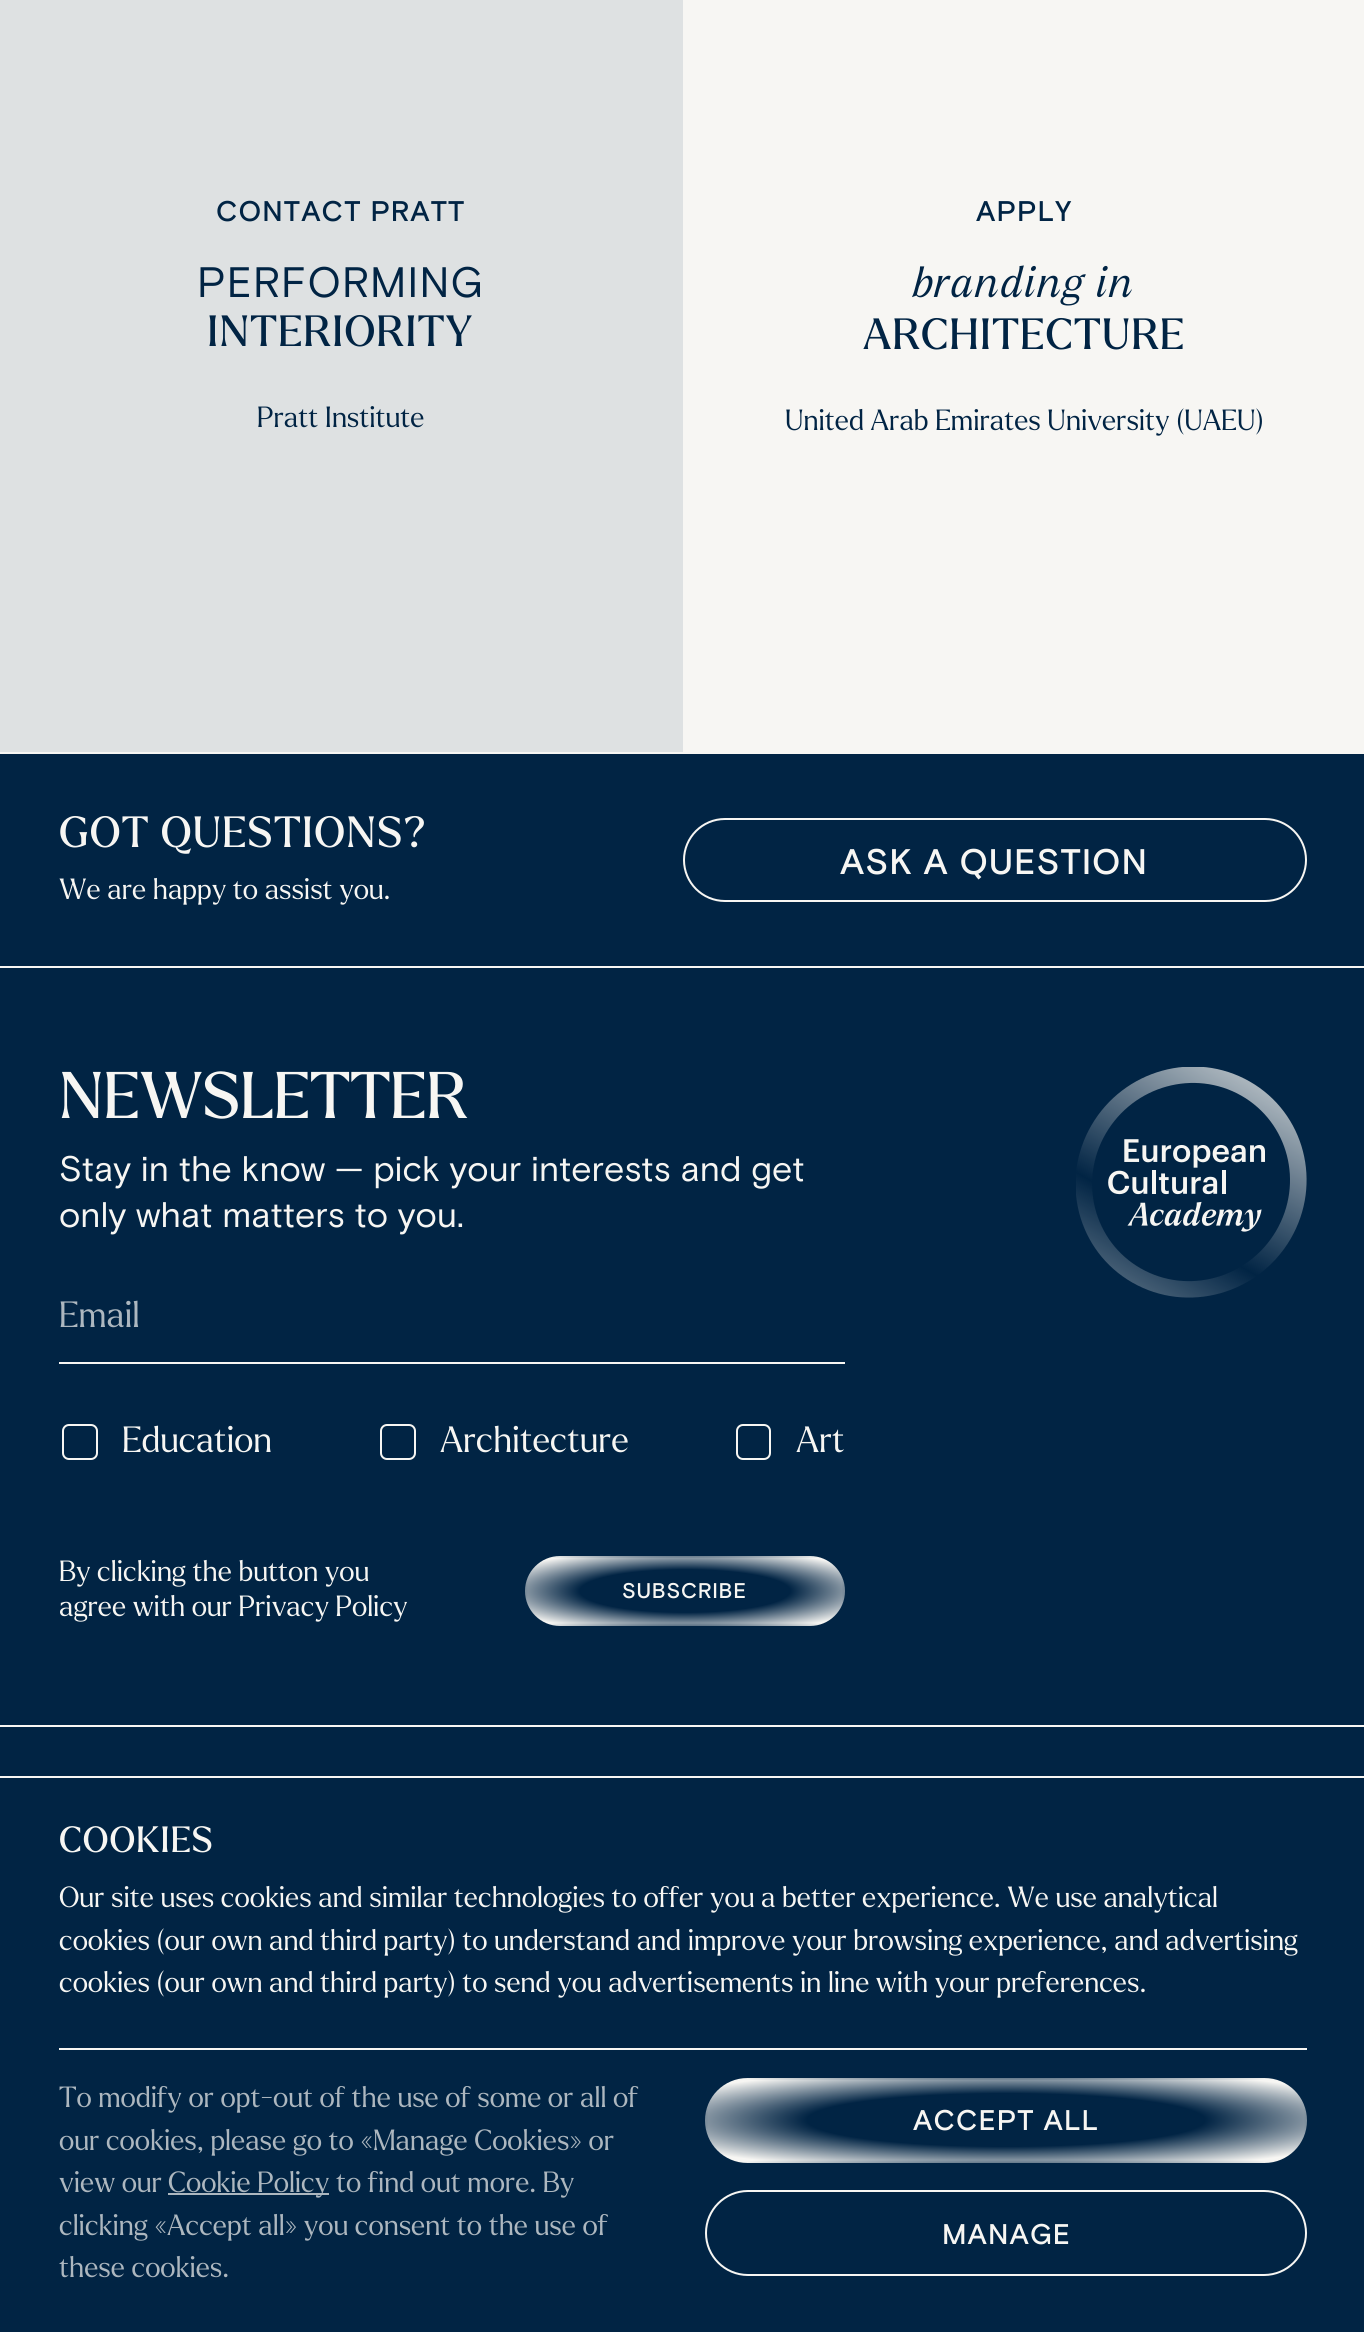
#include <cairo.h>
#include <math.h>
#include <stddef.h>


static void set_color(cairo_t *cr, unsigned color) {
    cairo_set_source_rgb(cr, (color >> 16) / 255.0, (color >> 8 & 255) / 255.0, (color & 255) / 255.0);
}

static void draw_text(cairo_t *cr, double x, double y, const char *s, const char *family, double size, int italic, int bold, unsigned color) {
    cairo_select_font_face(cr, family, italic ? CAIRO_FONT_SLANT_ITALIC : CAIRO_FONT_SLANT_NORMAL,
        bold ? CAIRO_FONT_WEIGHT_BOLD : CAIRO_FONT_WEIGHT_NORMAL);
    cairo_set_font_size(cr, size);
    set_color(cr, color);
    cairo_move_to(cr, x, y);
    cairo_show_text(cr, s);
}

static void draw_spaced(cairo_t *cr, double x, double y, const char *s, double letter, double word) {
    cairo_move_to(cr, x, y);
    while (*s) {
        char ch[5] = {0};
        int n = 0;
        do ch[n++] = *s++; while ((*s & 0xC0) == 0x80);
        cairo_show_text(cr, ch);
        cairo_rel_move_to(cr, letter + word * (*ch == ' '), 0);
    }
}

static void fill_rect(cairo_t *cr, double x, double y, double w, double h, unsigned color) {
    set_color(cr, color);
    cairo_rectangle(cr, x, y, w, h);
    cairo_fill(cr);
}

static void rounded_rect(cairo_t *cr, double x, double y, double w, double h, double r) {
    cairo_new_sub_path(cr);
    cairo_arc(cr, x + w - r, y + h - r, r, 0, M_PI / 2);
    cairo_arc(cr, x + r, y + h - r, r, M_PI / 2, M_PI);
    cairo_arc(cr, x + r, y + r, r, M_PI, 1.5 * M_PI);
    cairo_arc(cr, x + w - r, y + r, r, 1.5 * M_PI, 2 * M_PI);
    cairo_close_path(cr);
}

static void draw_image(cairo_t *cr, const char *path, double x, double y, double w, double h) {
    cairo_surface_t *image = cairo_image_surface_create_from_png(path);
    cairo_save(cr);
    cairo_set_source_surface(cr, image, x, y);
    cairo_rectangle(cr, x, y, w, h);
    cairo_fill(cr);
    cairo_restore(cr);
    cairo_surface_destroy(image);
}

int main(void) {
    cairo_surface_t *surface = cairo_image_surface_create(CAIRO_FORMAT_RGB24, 1364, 2332);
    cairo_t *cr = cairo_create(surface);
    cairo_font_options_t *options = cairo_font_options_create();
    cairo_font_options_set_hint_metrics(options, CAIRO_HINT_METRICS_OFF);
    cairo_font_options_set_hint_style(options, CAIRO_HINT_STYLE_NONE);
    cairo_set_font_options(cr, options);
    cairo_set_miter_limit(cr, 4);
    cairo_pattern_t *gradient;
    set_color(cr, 0x012444);
    cairo_paint(cr);
    fill_rect(cr, 0, 0, 1364, 968, 0xF7F6F3);
    fill_rect(cr, 0, 0, 683, 752, 0xDEE1E2);
    cairo_select_font_face(cr, "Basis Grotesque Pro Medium", CAIRO_FONT_SLANT_NORMAL, CAIRO_FONT_WEIGHT_NORMAL);
    cairo_set_font_size(cr, 28.4);
    set_color(cr, 0x012444);
    draw_spaced(cr, 216, 221, "CONTACT PRATT", 1.1, 0);
    cairo_select_font_face(cr, "Basis Grotesque Pro", CAIRO_FONT_SLANT_NORMAL, CAIRO_FONT_WEIGHT_NORMAL);
    cairo_set_font_size(cr, 42.5);
    draw_spaced(cr, 197, 297, "PERFORMING", 1.25, 0);
    cairo_select_font_face(cr, "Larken", CAIRO_FONT_SLANT_NORMAL, CAIRO_FONT_WEIGHT_NORMAL);
    draw_spaced(cr, 207, 346, "INTERIORITY", 1.25, 0);
    draw_text(cr, 257, 427, "Pratt Institute", "Larken Light", 28.4, 0, 0, 0x012444);
    cairo_select_font_face(cr, "Basis Grotesque Pro Medium", CAIRO_FONT_SLANT_NORMAL, CAIRO_FONT_WEIGHT_NORMAL);
    draw_spaced(cr, 976, 221, "APPLY", 1.1, 0);
    cairo_select_font_face(cr, "Larken Light", CAIRO_FONT_SLANT_ITALIC, CAIRO_FONT_WEIGHT_NORMAL);
    cairo_set_font_size(cr, 42.5);
    draw_spaced(cr, 913, 297, "branding in", 1.25, 0);
    cairo_select_font_face(cr, "Larken", CAIRO_FONT_SLANT_NORMAL, CAIRO_FONT_WEIGHT_NORMAL);
    draw_spaced(cr, 863, 349, "ARCHITECTURE", 1.25, 0);
    draw_text(cr, 785, 430, "United Arab Emirates University (UAEU)", "Larken Light", 28.4, 0, 0, 0x012444);
    fill_rect(cr, 0, 754, 1364, 212, 0x012444);
    cairo_select_font_face(cr, "Larken", CAIRO_FONT_SLANT_NORMAL, CAIRO_FONT_WEIGHT_NORMAL);
    cairo_set_font_size(cr, 42.5);
    set_color(cr, 0xF7F6F3);
    draw_spaced(cr, 59, 847, "GOT QUESTIONS?", 1.25, 0);
    draw_text(cr, 59, 899, "We are happy to assist you.", "Larken Light", 28.4, 0, 0, 0xF7F6F3);
    rounded_rect(cr, 684, 819, 622, 82, 41);
    cairo_stroke(cr);
    cairo_select_font_face(cr, "Basis Grotesque Pro Medium", CAIRO_FONT_SLANT_NORMAL, CAIRO_FONT_WEIGHT_NORMAL);
    cairo_set_font_size(cr, 35.5);
    draw_spaced(cr, 840, 874, "ASK A QUESTION", 1, 0);
    draw_text(cr, 59, 1118, "NEWSLETTER", "Larken", 64, 0, 0, 0xF7F6F3);
    draw_text(cr, 59, 1181, "Stay in the know — pick your interests and get", "Basis Grotesque Pro", 35.5, 0, 0, 0xF7F6F3);
    draw_text(cr, 59, 1227, "only what matters to you.", "Basis Grotesque Pro", 35.5, 0, 0, 0xF7F6F3);
    fill_rect(cr, 59, 1362, 786, 2, 0xF7F6F3);
    draw_text(cr, 59, 1327, "Email", "Larken Light", 35.5, 0, 0, 0xADB7BF);
    rounded_rect(cr, 63, 1425, 34, 34, 6);
    set_color(cr, 0xF7F6F3);
    cairo_stroke(cr);
    draw_text(cr, 122, 1452, "Education", "Larken Light", 35.5, 0, 0, 0xF7F6F3);
    rounded_rect(cr, 381, 1425, 34, 34, 6);
    cairo_stroke(cr);
    draw_text(cr, 440, 1452, "Architecture", "Larken Light", 35.5, 0, 0, 0xF7F6F3);
    rounded_rect(cr, 737, 1425, 33, 34, 6);
    cairo_stroke(cr);
    draw_text(cr, 796, 1452, "Art", "Larken Light", 35.5, 0, 0, 0xF7F6F3);
    draw_text(cr, 59, 1581, "By clicking the button you", "Larken Light", 28.4, 0, 0, 0xF7F6F3);
    draw_text(cr, 59, 1616, "agree with our Privacy Policy", "Larken Light", 28.4, 0, 0, 0xF7F6F3);
    cairo_save(cr);
    rounded_rect(cr, 525, 1556, 320, 70, 35);
    cairo_clip(cr);
    gradient = cairo_pattern_create_radial(0, 0, 0, 0, 0, 1);
    cairo_pattern_set_matrix(gradient, &(cairo_matrix_t){1.0 / 206, 0, 0, 1.0 / 42, -1.0 * 685 / 206, -1.0 * 1526 / 42});
    cairo_pattern_add_color_stop_rgba(gradient, 0.51, 0.004, 0.141, 0.267, 1);
    cairo_pattern_add_color_stop_rgba(gradient, 1, 0.969, 0.965, 0.953, 1);
    cairo_set_source(cr, gradient);
    cairo_pattern_destroy(gradient);
    cairo_rectangle(cr, 546, 1556, 278, 3);
    cairo_fill(cr);
    gradient = cairo_pattern_create_radial(0, 0, 0, 0, 0, 1);
    cairo_pattern_set_matrix(gradient, &(cairo_matrix_t){1.0 / 206, 0, 0, 1.0 / 42, -1.0 * 371 / 206, -1.0 * 1591 / 42});
    cairo_pattern_add_color_stop_rgba(gradient, 0.51, 0.004, 0.141, 0.267, 1);
    cairo_pattern_add_color_stop_rgba(gradient, 1, 0.969, 0.965, 0.953, 1);
    cairo_set_source(cr, gradient);
    cairo_pattern_destroy(gradient);
    cairo_rectangle(cr, 525, 1577, 3, 28);
    cairo_fill(cr);
    gradient = cairo_pattern_create_radial(0, 0, 0, 0, 0, 1);
    cairo_pattern_set_matrix(gradient, &(cairo_matrix_t){1.0 / 206, 0, 0, 1.0 / 42, -1.0 * 685 / 206, -1.0 * 1591 / 42});
    cairo_pattern_add_color_stop_rgba(gradient, 0.51, 0.004, 0.141, 0.267, 1);
    cairo_pattern_add_color_stop_rgba(gradient, 1, 0.969, 0.965, 0.953, 1);
    cairo_set_source(cr, gradient);
    cairo_pattern_destroy(gradient);
    cairo_rectangle(cr, 528, 1559, 314, 64);
    cairo_fill(cr);
    gradient = cairo_pattern_create_radial(0, 0, 0, 0, 0, 1);
    cairo_pattern_set_matrix(gradient, &(cairo_matrix_t){1.0 / 206, 0, 0, 1.0 / 42, -1.0 * 998 / 206, -1.0 * 1591 / 42});
    cairo_pattern_add_color_stop_rgba(gradient, 0.51, 0.004, 0.141, 0.267, 1);
    cairo_pattern_add_color_stop_rgba(gradient, 1, 0.969, 0.965, 0.953, 1);
    cairo_set_source(cr, gradient);
    cairo_pattern_destroy(gradient);
    cairo_rectangle(cr, 842, 1577, 3, 28);
    cairo_fill(cr);
    gradient = cairo_pattern_create_radial(0, 0, 0, 0, 0, 1);
    cairo_pattern_set_matrix(gradient, &(cairo_matrix_t){1.0 / 206, 0, 0, 1.0 / 42, -1.0 * 685 / 206, -1.0 * 1655 / 42});
    cairo_pattern_add_color_stop_rgba(gradient, 0.51, 0.004, 0.141, 0.267, 1);
    cairo_pattern_add_color_stop_rgba(gradient, 1, 0.969, 0.965, 0.953, 1);
    cairo_set_source(cr, gradient);
    cairo_pattern_destroy(gradient);
    cairo_rectangle(cr, 546, 1623, 278, 3);
    cairo_fill(cr);
    cairo_restore(cr);
    cairo_select_font_face(cr, "Basis Grotesque Pro Medium", CAIRO_FONT_SLANT_NORMAL, CAIRO_FONT_WEIGHT_NORMAL);
    cairo_set_font_size(cr, 21.25);
    draw_spaced(cr, 622, 1598, "SUBSCRIBE", 0.75, 0);
    draw_image(cr, "assets/img1.png", 1076, 1067, 231, 231);
    fill_rect(cr, 0, 1725, 1364, 2, 0xF7F6F3);
    fill_rect(cr, 0, 1776, 1364, 2, 0xF7F6F3);
    cairo_select_font_face(cr, "Larken", CAIRO_FONT_SLANT_NORMAL, CAIRO_FONT_WEIGHT_NORMAL);
    cairo_set_font_size(cr, 35.5);
    draw_spaced(cr, 59, 1852, "COOKIES", 1, 0);
    draw_text(cr, 59, 1907, "Our site uses cookies and similar technologies to offer you a better experience. We use analytical", "Larken Light", 28.4, 0, 0, 0xF7F6F3);
    draw_text(cr, 59, 1950, "cookies (our own and third party) to understand and improve your browsing experience, and advertising", "Larken Light", 28.4, 0, 0, 0xF7F6F3);
    draw_text(cr, 59, 1992, "cookies (our own and third party) to send you advertisements in line with your preferences.", "Larken Light", 28.4, 0, 0, 0xF7F6F3);
    fill_rect(cr, 59, 2048, 1248, 2, 0xF7F6F3);
    draw_text(cr, 59, 2107, "To modify or opt-out of the use of some or all of", "Larken Light", 28.4, 0, 0, 0xADB7BF);
    draw_text(cr, 59, 2150, "our cookies, please go to «Manage Cookies» or", "Larken Light", 28.4, 0, 0, 0xADB7BF);
    draw_text(cr, 59, 2192, "view our", "Larken Light", 28.4, 0, 0, 0xADB7BF);
    fill_rect(cr, 168, 2193, 161, 2, 0xADB7BF);
    draw_text(cr, 168, 2192, "Cookie Policy to find out more. By", "Larken Light", 28.4, 0, 0, 0xADB7BF);
    draw_text(cr, 59, 2235, "clicking «Accept all» you consent to the use of", "Larken Light", 28.4, 0, 0, 0xADB7BF);
    draw_text(cr, 59, 2277, "these cookies.", "Larken Light", 28.4, 0, 0, 0xADB7BF);
    cairo_save(cr);
    rounded_rect(cr, 705, 2078, 602, 85, 42.5);
    cairo_clip(cr);
    gradient = cairo_pattern_create_radial(0, 0, 0, 0, 0, 1);
    cairo_pattern_set_matrix(gradient, &(cairo_matrix_t){1.0 / 391, 0, 0, 1.0 / 52, -1.0 * 1006 / 391, -1.0 * 2041 / 52});
    cairo_pattern_add_color_stop_rgba(gradient, 0.51, 0.004, 0.141, 0.267, 1);
    cairo_pattern_add_color_stop_rgba(gradient, 1, 0.969, 0.965, 0.953, 1);
    cairo_set_source(cr, gradient);
    cairo_pattern_destroy(gradient);
    cairo_rectangle(cr, 732, 2078, 548, 3);
    cairo_fill(cr);
    gradient = cairo_pattern_create_radial(0, 0, 0, 0, 0, 1);
    cairo_pattern_set_matrix(gradient, &(cairo_matrix_t){1.0 / 391, 0, 0, 1.0 / 52, -1.0 * 411 / 391, -1.0 * 2120 / 52});
    cairo_pattern_add_color_stop_rgba(gradient, 0.51, 0.004, 0.141, 0.267, 1);
    cairo_pattern_add_color_stop_rgba(gradient, 1, 0.969, 0.965, 0.953, 1);
    cairo_set_source(cr, gradient);
    cairo_pattern_destroy(gradient);
    cairo_rectangle(cr, 705, 2105, 3, 31);
    cairo_fill(cr);
    gradient = cairo_pattern_create_radial(0, 0, 0, 0, 0, 1);
    cairo_pattern_set_matrix(gradient, &(cairo_matrix_t){1.0 / 391, 0, 0, 1.0 / 52, -1.0 * 1006 / 391, -1.0 * 2120 / 52});
    cairo_pattern_add_color_stop_rgba(gradient, 0.51, 0.004, 0.141, 0.267, 1);
    cairo_pattern_add_color_stop_rgba(gradient, 1, 0.969, 0.965, 0.953, 1);
    cairo_set_source(cr, gradient);
    cairo_pattern_destroy(gradient);
    cairo_rectangle(cr, 708, 2081, 596, 79);
    cairo_fill(cr);
    gradient = cairo_pattern_create_radial(0, 0, 0, 0, 0, 1);
    cairo_pattern_set_matrix(gradient, &(cairo_matrix_t){1.0 / 391, 0, 0, 1.0 / 52, -1.0 * 1602 / 391, -1.0 * 2120 / 52});
    cairo_pattern_add_color_stop_rgba(gradient, 0.51, 0.004, 0.141, 0.267, 1);
    cairo_pattern_add_color_stop_rgba(gradient, 1, 0.969, 0.965, 0.953, 1);
    cairo_set_source(cr, gradient);
    cairo_pattern_destroy(gradient);
    cairo_rectangle(cr, 1304, 2105, 3, 31);
    cairo_fill(cr);
    gradient = cairo_pattern_create_radial(0, 0, 0, 0, 0, 1);
    cairo_pattern_set_matrix(gradient, &(cairo_matrix_t){1.0 / 391, 0, 0, 1.0 / 52, -1.0 * 1006 / 391, -1.0 * 2200 / 52});
    cairo_pattern_add_color_stop_rgba(gradient, 0.51, 0.004, 0.141, 0.267, 1);
    cairo_pattern_add_color_stop_rgba(gradient, 1, 0.969, 0.965, 0.953, 1);
    cairo_set_source(cr, gradient);
    cairo_pattern_destroy(gradient);
    cairo_rectangle(cr, 732, 2160, 548, 3);
    cairo_fill(cr);
    cairo_restore(cr);
    cairo_select_font_face(cr, "Basis Grotesque Pro Medium", CAIRO_FONT_SLANT_NORMAL, CAIRO_FONT_WEIGHT_NORMAL);
    set_color(cr, 0xF7F6F3);
    draw_spaced(cr, 913, 2130, "ACCEPT ALL", 1.1, 0);
    rounded_rect(cr, 706, 2191, 600, 84, 42);
    cairo_stroke(cr);
    draw_spaced(cr, 942, 2244, "MANAGE", 1.1, 0);
    cairo_surface_write_to_png(surface, "output.png");
    cairo_font_options_destroy(options);
    cairo_destroy(cr);
    cairo_surface_destroy(surface);
    return 0;
}
